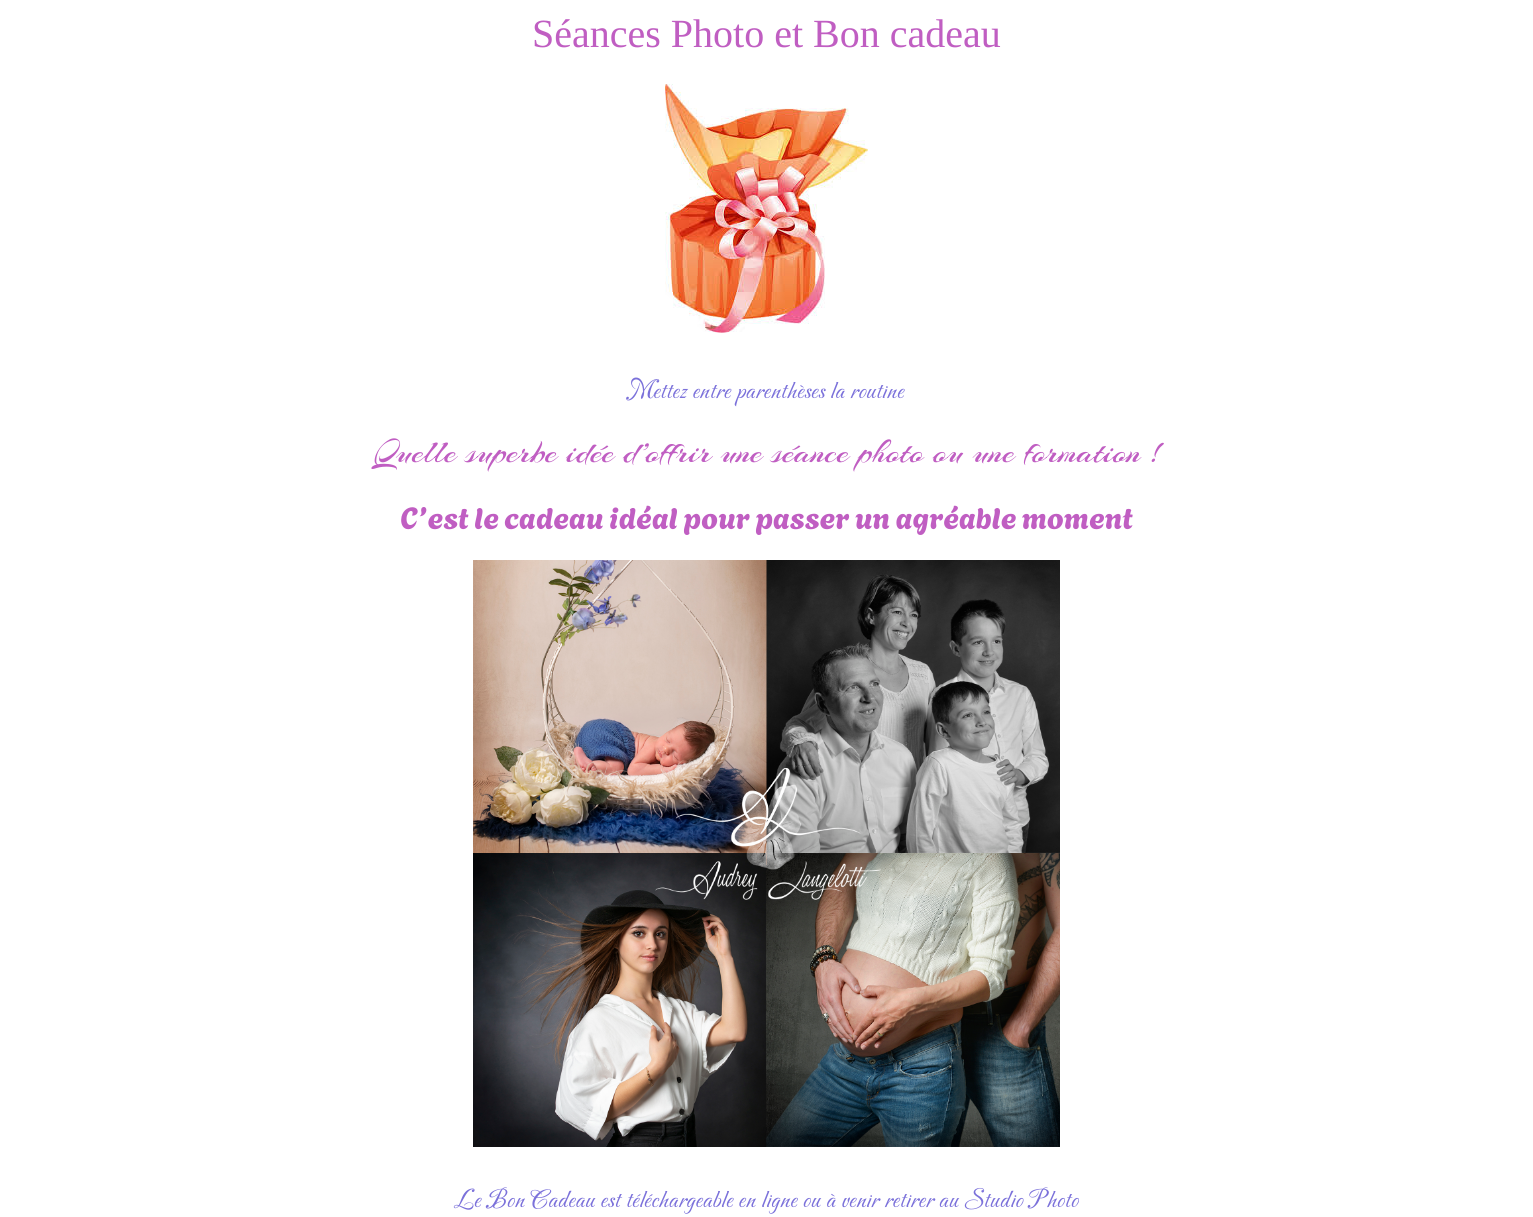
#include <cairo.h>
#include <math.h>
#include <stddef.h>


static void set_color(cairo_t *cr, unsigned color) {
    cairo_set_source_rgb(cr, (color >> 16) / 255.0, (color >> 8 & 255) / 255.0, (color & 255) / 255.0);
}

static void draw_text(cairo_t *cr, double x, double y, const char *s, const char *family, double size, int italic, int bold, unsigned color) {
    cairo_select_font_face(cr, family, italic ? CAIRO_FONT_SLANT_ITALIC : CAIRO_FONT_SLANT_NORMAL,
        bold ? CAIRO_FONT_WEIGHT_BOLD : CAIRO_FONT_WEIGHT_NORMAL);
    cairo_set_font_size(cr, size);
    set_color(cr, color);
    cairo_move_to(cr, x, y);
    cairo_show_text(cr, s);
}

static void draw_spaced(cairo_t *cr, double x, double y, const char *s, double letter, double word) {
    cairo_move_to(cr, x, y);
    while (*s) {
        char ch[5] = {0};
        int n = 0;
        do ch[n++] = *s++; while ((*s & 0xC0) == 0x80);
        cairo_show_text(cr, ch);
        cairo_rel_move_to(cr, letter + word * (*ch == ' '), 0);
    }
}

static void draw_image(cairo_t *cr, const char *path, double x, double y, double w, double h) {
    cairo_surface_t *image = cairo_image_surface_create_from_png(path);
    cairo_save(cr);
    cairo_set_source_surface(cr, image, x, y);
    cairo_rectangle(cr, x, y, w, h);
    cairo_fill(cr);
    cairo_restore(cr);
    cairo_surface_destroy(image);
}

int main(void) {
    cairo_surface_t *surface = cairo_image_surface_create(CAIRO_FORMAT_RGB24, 1533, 1217);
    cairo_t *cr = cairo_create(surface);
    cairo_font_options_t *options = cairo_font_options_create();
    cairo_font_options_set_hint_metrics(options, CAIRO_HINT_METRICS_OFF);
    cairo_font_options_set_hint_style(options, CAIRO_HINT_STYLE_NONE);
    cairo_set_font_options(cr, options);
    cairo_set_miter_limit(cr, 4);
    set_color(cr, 0xFFFFFF);
    cairo_paint(cr);
    draw_text(cr, 532, 47, "Séances Photo et Bon cadeau", "Liberation Serif", 40, 0, 0, 0xC05EC2);
    draw_image(cr, "assets/img1.png", 665, 84, 203, 249);
    cairo_select_font_face(cr, "Carattere", CAIRO_FONT_SLANT_NORMAL, CAIRO_FONT_WEIGHT_NORMAL);
    cairo_set_font_size(cr, 26);
    set_color(cr, 0x7B71DA);
    draw_spaced(cr, 629, 398, "Mettez entre parenthèses la routine", 0.3, 0);
    draw_text(cr, 373, 462, "Quelle superbe idée d’offrir une séance photo ou une formation !", "Arizonia", 35, 0, 0, 0xC05EC2);
    draw_text(cr, 400, 529, "C’est le cadeau idéal pour passer un agréable moment", "Agbalumo", 30, 0, 0, 0xC05EC2);
    draw_image(cr, "assets/img2.png", 473, 560, 587, 587);
    cairo_select_font_face(cr, "Carattere", CAIRO_FONT_SLANT_NORMAL, CAIRO_FONT_WEIGHT_NORMAL);
    cairo_set_font_size(cr, 26);
    set_color(cr, 0x7B71DA);
    draw_spaced(cr, 454, 1207, "Le Bon Cadeau est téléchargeable en ligne ou à venir retirer au Studio Photo", 0.3, 0);
    cairo_surface_write_to_png(surface, "output.png");
    cairo_font_options_destroy(options);
    cairo_destroy(cr);
    cairo_surface_destroy(surface);
    return 0;
}
